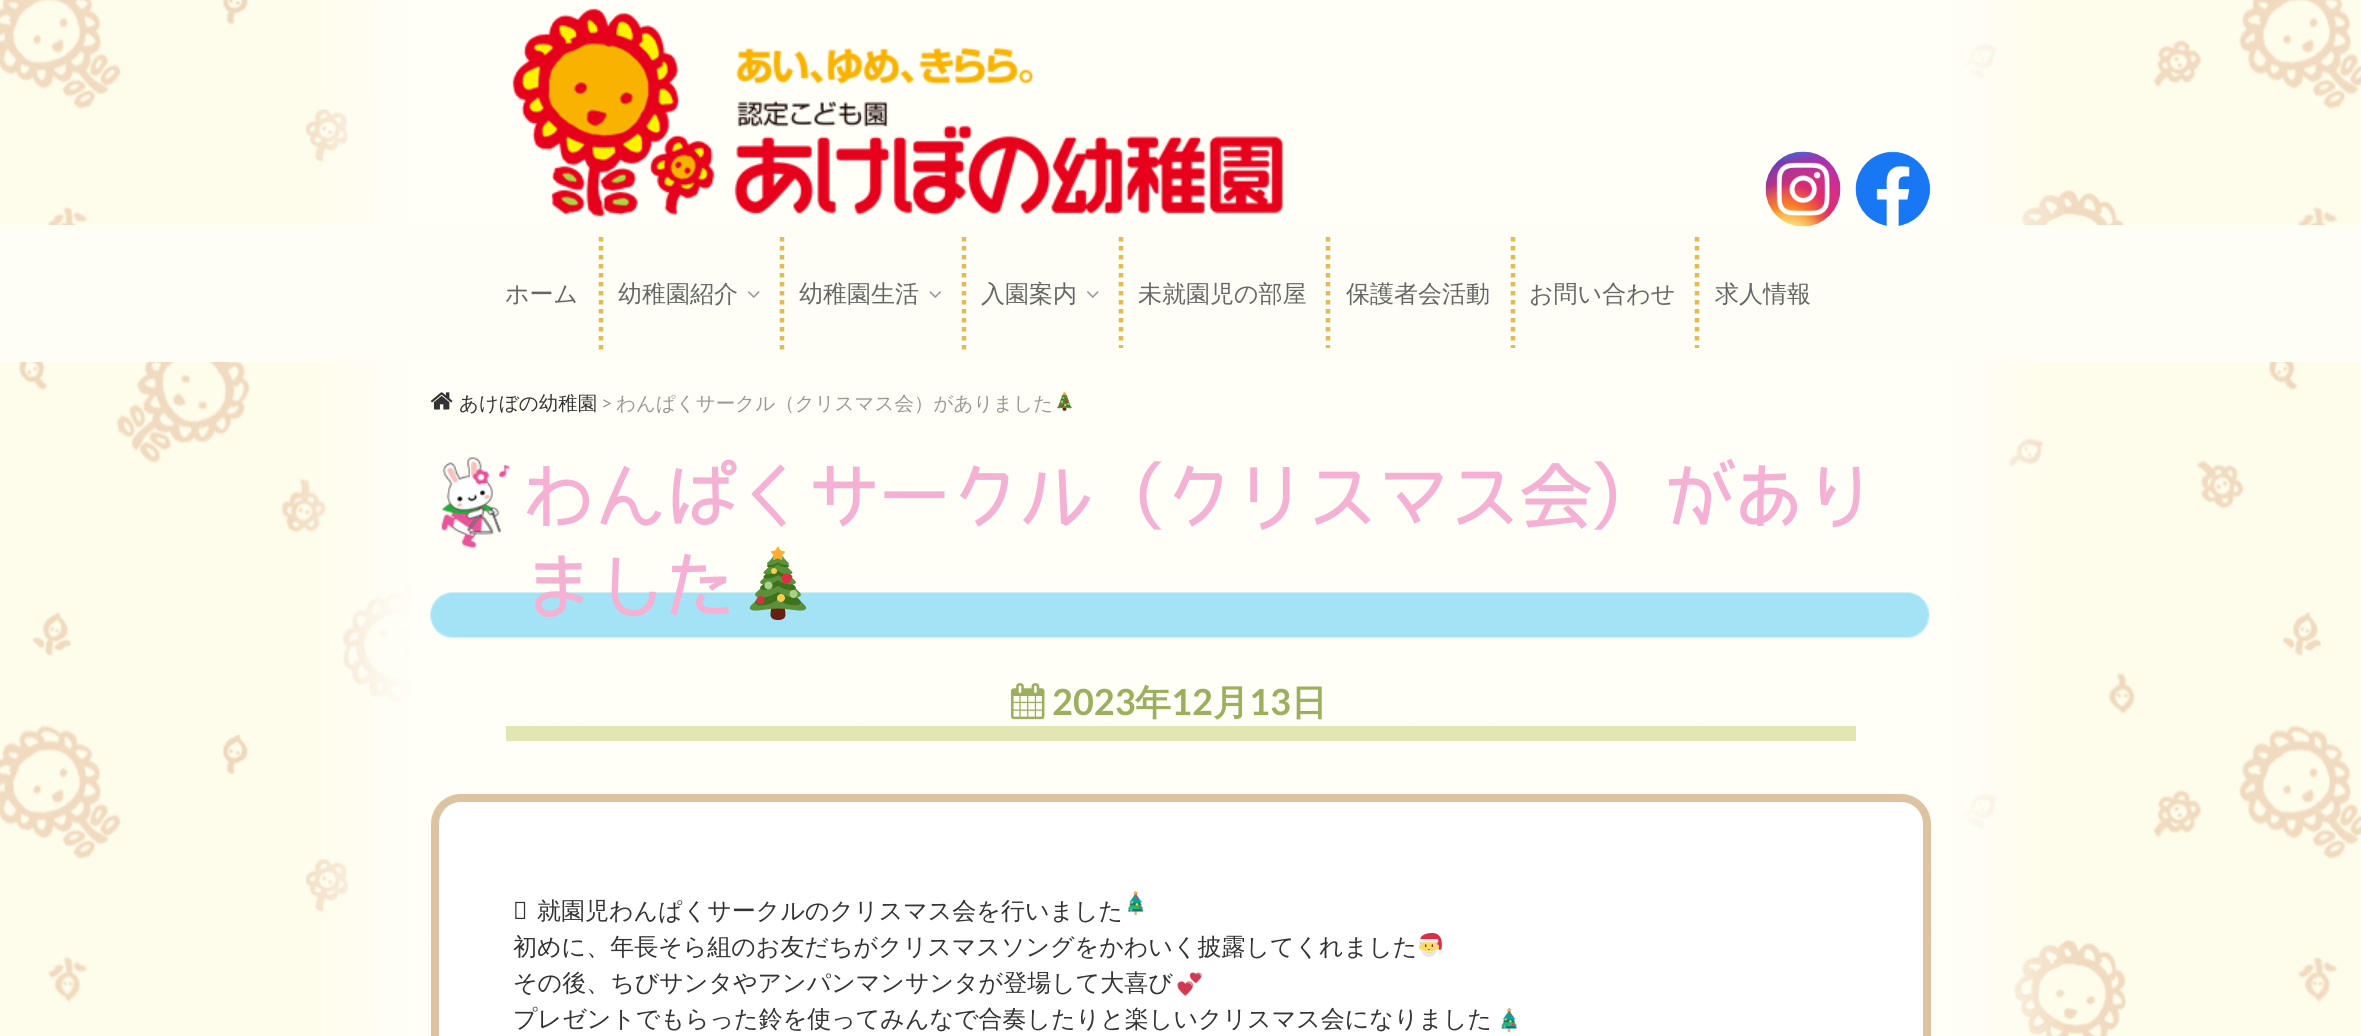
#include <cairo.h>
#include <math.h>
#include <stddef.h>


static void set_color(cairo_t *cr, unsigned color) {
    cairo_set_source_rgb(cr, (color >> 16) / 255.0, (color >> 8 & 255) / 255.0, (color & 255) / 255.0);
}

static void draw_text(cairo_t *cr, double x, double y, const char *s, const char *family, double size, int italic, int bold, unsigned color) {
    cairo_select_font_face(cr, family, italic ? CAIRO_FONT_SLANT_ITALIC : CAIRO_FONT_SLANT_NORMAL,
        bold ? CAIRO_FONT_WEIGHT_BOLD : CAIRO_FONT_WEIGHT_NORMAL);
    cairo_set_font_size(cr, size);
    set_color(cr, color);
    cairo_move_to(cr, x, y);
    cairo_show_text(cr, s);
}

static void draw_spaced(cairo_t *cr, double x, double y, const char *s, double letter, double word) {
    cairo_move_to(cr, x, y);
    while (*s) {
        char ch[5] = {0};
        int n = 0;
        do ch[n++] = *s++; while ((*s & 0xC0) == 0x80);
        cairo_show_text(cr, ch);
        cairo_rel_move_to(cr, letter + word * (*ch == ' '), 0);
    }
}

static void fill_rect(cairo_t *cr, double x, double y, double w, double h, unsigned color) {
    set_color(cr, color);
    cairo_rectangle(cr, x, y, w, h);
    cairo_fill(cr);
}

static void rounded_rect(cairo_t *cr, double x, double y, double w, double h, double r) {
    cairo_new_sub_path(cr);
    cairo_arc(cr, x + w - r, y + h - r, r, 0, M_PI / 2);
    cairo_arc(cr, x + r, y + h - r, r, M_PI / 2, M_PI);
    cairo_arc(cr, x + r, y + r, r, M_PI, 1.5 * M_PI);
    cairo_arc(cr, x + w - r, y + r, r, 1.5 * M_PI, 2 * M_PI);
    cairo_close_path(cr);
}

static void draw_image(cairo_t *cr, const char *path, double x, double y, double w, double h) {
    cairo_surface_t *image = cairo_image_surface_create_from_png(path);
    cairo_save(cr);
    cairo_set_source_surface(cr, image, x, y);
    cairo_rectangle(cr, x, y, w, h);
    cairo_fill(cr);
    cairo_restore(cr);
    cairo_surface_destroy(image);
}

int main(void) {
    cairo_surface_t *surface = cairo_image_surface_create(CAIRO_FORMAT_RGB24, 2361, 1036);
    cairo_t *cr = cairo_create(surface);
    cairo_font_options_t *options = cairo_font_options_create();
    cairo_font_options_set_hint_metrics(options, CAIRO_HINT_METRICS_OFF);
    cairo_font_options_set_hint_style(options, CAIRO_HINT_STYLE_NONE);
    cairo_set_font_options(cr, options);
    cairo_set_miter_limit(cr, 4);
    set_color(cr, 0xFFFFFF);
    cairo_paint(cr);
    draw_image(cr, "assets/img1.png", 0, 0, 2361, 1036);
    draw_image(cr, "assets/img2.png", 297, 0, 1767, 1036);
    draw_image(cr, "assets/img3.png", 512, 8, 771, 209);
    fill_rect(cr, 0, 225, 2361, 137, 0xFEFEF7);
    draw_image(cr, "assets/img4.png", 1765, 151, 76, 76);
    draw_image(cr, "assets/img5.png", 1855, 151, 76, 75);
    draw_text(cr, 505, 302, "ホーム", "WenQuanYi Zen Hei Medium", 24, 0, 0, 0x666666);
    cairo_new_path(cr);
    cairo_move_to(cr, 601, 237);
    cairo_line_to(cr, 601, 349.5);
    set_color(cr, 0xE1BB57);
    cairo_set_line_width(cr, 4.5);
    cairo_set_dash(cr, (double[]){4.5, 4.5}, 2, 0);
    cairo_stroke(cr);
    draw_text(cr, 618, 302, "幼稚園紹介", "WenQuanYi Zen Hei Medium", 24, 0, 0, 0x666666);
    draw_image(cr, "assets/img6.png", 748, 291, 12, 7);
    cairo_new_path(cr);
    cairo_move_to(cr, 782, 237);
    cairo_line_to(cr, 782, 349.5);
    set_color(cr, 0xE1BB57);
    cairo_stroke(cr);
    draw_text(cr, 799, 302, "幼稚園生活", "WenQuanYi Zen Hei Medium", 24, 0, 0, 0x666666);
    draw_image(cr, "assets/img7.png", 929, 291, 12, 7);
    cairo_new_path(cr);
    cairo_move_to(cr, 964, 237);
    cairo_line_to(cr, 964, 349.5);
    set_color(cr, 0xE1BB57);
    cairo_stroke(cr);
    draw_text(cr, 981, 302, "入園案内", "WenQuanYi Zen Hei Medium", 24, 0, 0, 0x666666);
    draw_image(cr, "assets/img6.png", 1087, 291, 12, 7);
    cairo_new_path(cr);
    cairo_move_to(cr, 1121, 237);
    cairo_line_to(cr, 1121, 348);
    set_color(cr, 0xE1BB57);
    cairo_stroke(cr);
    draw_text(cr, 1138, 302, "未就園児の部屋", "WenQuanYi Zen Hei Medium", 24, 0, 0, 0x666666);
    cairo_new_path(cr);
    cairo_move_to(cr, 1328, 237);
    cairo_line_to(cr, 1328, 348);
    set_color(cr, 0xE1BB57);
    cairo_stroke(cr);
    draw_text(cr, 1346, 302, "保護者会活動", "WenQuanYi Zen Hei Medium", 24, 0, 0, 0x666666);
    cairo_new_path(cr);
    cairo_move_to(cr, 1513, 237);
    cairo_line_to(cr, 1513, 348);
    set_color(cr, 0xE1BB57);
    cairo_stroke(cr);
    draw_text(cr, 1529, 302, "お問い合わせ", "WenQuanYi Zen Hei Medium", 24, 0, 0, 0x666666);
    cairo_new_path(cr);
    cairo_move_to(cr, 1697, 237);
    cairo_line_to(cr, 1697, 348);
    set_color(cr, 0xE1BB57);
    cairo_stroke(cr);
    draw_text(cr, 1715, 302, "求人情報", "WenQuanYi Zen Hei Medium", 24, 0, 0, 0x666666);
    draw_image(cr, "assets/img8.png", 430, 392, 23, 18);
    draw_text(cr, 459, 410, "あけぼの幼稚園", "WenQuanYi Zen Hei Medium", 19.5, 0, 0, 0x333333);
    draw_text(cr, 601, 410, ">", "Lato", 19.5, 0, 0, 0x999999);
    draw_text(cr, 616, 410, "わんぱくサークル（クリスマス会）がありました", "WenQuanYi Zen Hei Medium", 19.5, 0, 0, 0x999999);
    draw_image(cr, "assets/img9.png", 1057, 392, 15, 19);
    draw_image(cr, "assets/img10.png", 430, 592, 1500, 46);
    draw_image(cr, "assets/img11.png", 441, 457, 69, 91);
    cairo_select_font_face(cr, "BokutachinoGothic", CAIRO_FONT_SLANT_NORMAL, CAIRO_FONT_WEIGHT_NORMAL);
    cairo_set_font_size(cr, 75);
    set_color(cr, 0xF4B1D3);
    draw_spaced(cr, 521, 524, "わんぱくサークル（クリスマス会）があり", -3.75, 0);
    draw_spaced(cr, 521, 614, "ました", -3.75, 0);
    draw_image(cr, "assets/img12.png", 749, 546, 58, 74);
    fill_rect(cr, 506, 726, 1350, 15, 0xE3E6B3);
    draw_image(cr, "assets/img13.png", 1011, 683, 34, 37);
    draw_text(cr, 1052, 715, "2023", "Lato", 36, 0, 1, 0x9CAF5C);
    draw_text(cr, 1135, 715, "年", "WenQuanYi Zen Hei", 36, 0, 1, 0x9CAF5C);
    draw_text(cr, 1171, 715, "12", "Lato", 36, 0, 1, 0x9CAF5C);
    draw_text(cr, 1213, 715, "月", "WenQuanYi Zen Hei", 36, 0, 1, 0x9CAF5C);
    draw_text(cr, 1249, 715, "13", "Lato", 36, 0, 1, 0x9CAF5C);
    draw_text(cr, 1291, 715, "日", "WenQuanYi Zen Hei", 36, 0, 1, 0x9CAF5C);
    set_color(cr, 0xFFFFFF);
    rounded_rect(cr, 435, 798, 1492, 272, 26);
    cairo_fill_preserve(cr);
    set_color(cr, 0xDDC3A2);
    cairo_set_line_width(cr, 8);
    cairo_set_dash(cr, NULL, 0, 0);
    cairo_stroke(cr);
    draw_text(cr, 513, 919, "未", "Noto Sans", 24, 0, 0, 0x333333);
    draw_text(cr, 537, 919, "就園児わんぱくサークルのクリスマス会を行いました", "WenQuanYi Zen Hei Medium", 24, 0, 0, 0x333333);
    draw_image(cr, "assets/img14.png", 1128, 891, 16, 24);
    draw_text(cr, 513, 955, "初めに、年長そら組のお友だちがクリスマスソングをかわいく披露してくれました", "WenQuanYi Zen Hei Medium", 24, 0, 0, 0x333333);
    draw_image(cr, "assets/img15.png", 1419, 933, 24, 24);
    draw_text(cr, 513, 991, "その後、ちびサンタやアンパンマンサンタが登場して大喜び", "WenQuanYi Zen Hei Medium", 24, 0, 0, 0x333333);
    draw_image(cr, "assets/img16.png", 1177, 972, 25, 24);
    draw_text(cr, 513, 1027, "プレゼントでもらった鈴を使ってみんなで合奏したりと楽しいクリスマス会になりました", "WenQuanYi Zen Hei Medium", 24, 0, 0, 0x333333);
    draw_image(cr, "assets/img17.png", 1501, 1008, 16, 24);
    cairo_surface_write_to_png(surface, "output.png");
    cairo_font_options_destroy(options);
    cairo_destroy(cr);
    cairo_surface_destroy(surface);
    return 0;
}
